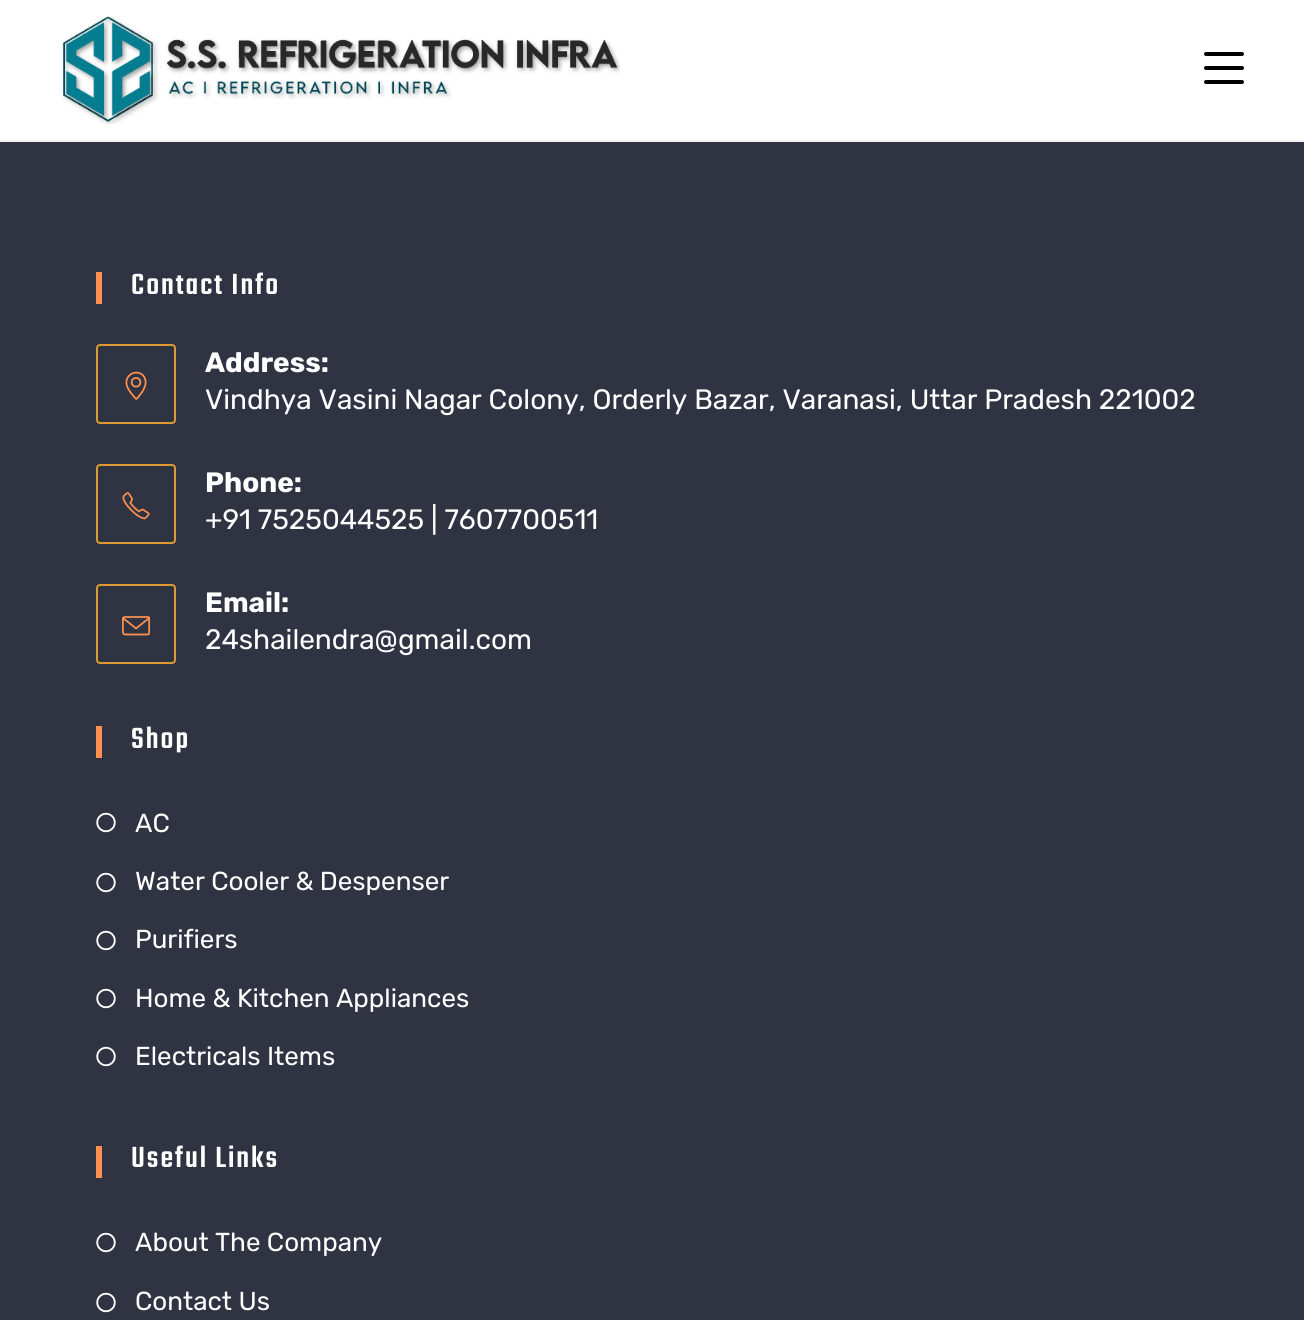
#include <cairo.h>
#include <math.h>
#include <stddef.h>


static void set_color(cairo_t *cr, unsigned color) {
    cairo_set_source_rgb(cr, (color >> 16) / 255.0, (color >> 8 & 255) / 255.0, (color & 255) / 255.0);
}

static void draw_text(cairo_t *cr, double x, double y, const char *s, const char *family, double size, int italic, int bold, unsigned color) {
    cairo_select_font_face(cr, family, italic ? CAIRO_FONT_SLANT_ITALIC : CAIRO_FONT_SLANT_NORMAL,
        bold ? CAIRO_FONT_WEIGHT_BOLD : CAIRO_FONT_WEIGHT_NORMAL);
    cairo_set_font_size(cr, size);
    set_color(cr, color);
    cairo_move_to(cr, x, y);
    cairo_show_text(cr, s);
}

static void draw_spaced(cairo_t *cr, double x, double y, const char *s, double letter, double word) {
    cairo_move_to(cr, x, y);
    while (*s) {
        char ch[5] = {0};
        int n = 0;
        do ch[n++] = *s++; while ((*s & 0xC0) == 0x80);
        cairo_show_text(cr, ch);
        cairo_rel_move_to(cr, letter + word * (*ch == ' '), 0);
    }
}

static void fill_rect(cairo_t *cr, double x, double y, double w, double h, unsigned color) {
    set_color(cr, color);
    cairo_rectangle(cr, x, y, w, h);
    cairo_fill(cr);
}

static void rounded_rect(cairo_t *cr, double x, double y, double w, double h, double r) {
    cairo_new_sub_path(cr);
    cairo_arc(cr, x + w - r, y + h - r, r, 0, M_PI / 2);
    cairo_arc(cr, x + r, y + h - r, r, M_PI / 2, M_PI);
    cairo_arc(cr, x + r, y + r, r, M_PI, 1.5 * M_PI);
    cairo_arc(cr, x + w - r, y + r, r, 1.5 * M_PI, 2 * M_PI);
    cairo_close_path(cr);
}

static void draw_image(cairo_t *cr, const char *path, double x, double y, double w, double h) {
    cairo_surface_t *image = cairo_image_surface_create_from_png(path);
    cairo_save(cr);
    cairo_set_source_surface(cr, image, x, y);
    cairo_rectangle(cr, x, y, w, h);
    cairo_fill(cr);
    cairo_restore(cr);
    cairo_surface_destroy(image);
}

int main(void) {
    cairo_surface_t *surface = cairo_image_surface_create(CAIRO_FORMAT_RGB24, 1304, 1320);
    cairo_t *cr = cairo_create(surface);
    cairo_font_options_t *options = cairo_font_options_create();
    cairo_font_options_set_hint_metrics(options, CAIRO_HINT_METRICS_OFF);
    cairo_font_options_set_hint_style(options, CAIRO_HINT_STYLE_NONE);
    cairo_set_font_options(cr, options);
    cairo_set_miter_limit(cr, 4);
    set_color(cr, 0xFFFFFF);
    cairo_paint(cr);
    fill_rect(cr, 0, 140, 1304, 2, 0xF1F1F1);
    draw_image(cr, "assets/img1.png", 62, 16, 558, 108);
    set_color(cr, 0x000000);
    rounded_rect(cr, 1204, 80, 40, 4, 2);
    cairo_fill(cr);
    rounded_rect(cr, 1204, 52, 40, 4, 2);
    cairo_fill(cr);
    rounded_rect(cr, 1204, 66, 40, 4, 2);
    cairo_fill(cr);
    fill_rect(cr, 0, 142, 1304, 1178, 0x303442);
    fill_rect(cr, 96, 272, 6, 32, 0xFD914F);
    cairo_select_font_face(cr, "Teko Medium", CAIRO_FONT_SLANT_NORMAL, CAIRO_FONT_WEIGHT_NORMAL);
    cairo_set_font_size(cr, 32);
    set_color(cr, 0xFFFFFF);
    draw_spaced(cr, 131, 294, "Contact Info", 2, 0);
    rounded_rect(cr, 97, 345, 78, 78, 3);
    set_color(cr, 0xDD9933);
    cairo_stroke(cr);
    draw_image(cr, "assets/img2.png", 125, 371, 22, 29);
    draw_text(cr, 205, 372, "Address:", "Rubik", 28, 0, 1, 0xFFFFFF);
    draw_text(cr, 205, 409, "Vindhya Vasini Nagar Colony, Orderly Bazar, Varanasi, Uttar Pradesh 221002", "Rubik", 28, 0, 0, 0xFFFFFF);
    rounded_rect(cr, 97, 465, 78, 78, 3);
    set_color(cr, 0xDD9933);
    cairo_stroke(cr);
    draw_image(cr, "assets/img3.png", 122, 492, 28, 28);
    draw_text(cr, 205, 492, "Phone:", "Rubik", 28, 0, 1, 0xFFFFFF);
    draw_text(cr, 205, 529, "+91 7525044525 | 7607700511", "Rubik", 28, 0, 0, 0xFFFFFF);
    rounded_rect(cr, 97, 585, 78, 78, 3);
    set_color(cr, 0xDD9933);
    cairo_stroke(cr);
    draw_image(cr, "assets/img4.png", 122, 616, 29, 20);
    draw_text(cr, 205, 612, "Email:", "Rubik", 28, 0, 1, 0xFFFFFF);
    draw_text(cr, 205, 649, "24shailendra@gmail.com", "Rubik", 28, 0, 0, 0xFFFFFF);
    fill_rect(cr, 96, 726, 6, 32, 0xFD914F);
    cairo_select_font_face(cr, "Teko Medium", CAIRO_FONT_SLANT_NORMAL, CAIRO_FONT_WEIGHT_NORMAL);
    cairo_set_font_size(cr, 32);
    set_color(cr, 0xFFFFFF);
    draw_spaced(cr, 131, 748, "Shop", 2, 0);
    draw_image(cr, "assets/img5.png", 96, 812, 20, 21);
    draw_text(cr, 135, 832, "AC", "Rubik", 26, 0, 0, 0xFFFFFF);
    draw_image(cr, "assets/img5.png", 96, 872, 20, 21);
    draw_text(cr, 135, 890, "Water Cooler & Despenser", "Rubik", 26, 0, 0, 0xFFFFFF);
    draw_image(cr, "assets/img5.png", 96, 930, 20, 21);
    draw_text(cr, 135, 948, "Purifiers", "Rubik", 26, 0, 0, 0xFFFFFF);
    draw_image(cr, "assets/img5.png", 96, 988, 20, 21);
    draw_text(cr, 135, 1007, "Home & Kitchen Appliances", "Rubik", 26, 0, 0, 0xFFFFFF);
    draw_image(cr, "assets/img5.png", 96, 1046, 20, 21);
    draw_text(cr, 135, 1065, "Electricals Items", "Rubik", 26, 0, 0, 0xFFFFFF);
    fill_rect(cr, 96, 1146, 6, 32, 0xFD914F);
    cairo_select_font_face(cr, "Teko Medium", CAIRO_FONT_SLANT_NORMAL, CAIRO_FONT_WEIGHT_NORMAL);
    cairo_set_font_size(cr, 32);
    set_color(cr, 0xFFFFFF);
    draw_spaced(cr, 131, 1167, "Useful Links", 2, 0);
    draw_image(cr, "assets/img5.png", 96, 1232, 20, 21);
    draw_text(cr, 135, 1251, "About The Company", "Rubik", 26, 0, 0, 0xFFFFFF);
    draw_image(cr, "assets/img5.png", 96, 1292, 20, 21);
    draw_text(cr, 135, 1310, "Contact Us", "Rubik", 26, 0, 0, 0xFFFFFF);
    cairo_surface_write_to_png(surface, "output.png");
    cairo_font_options_destroy(options);
    cairo_destroy(cr);
    cairo_surface_destroy(surface);
    return 0;
}
